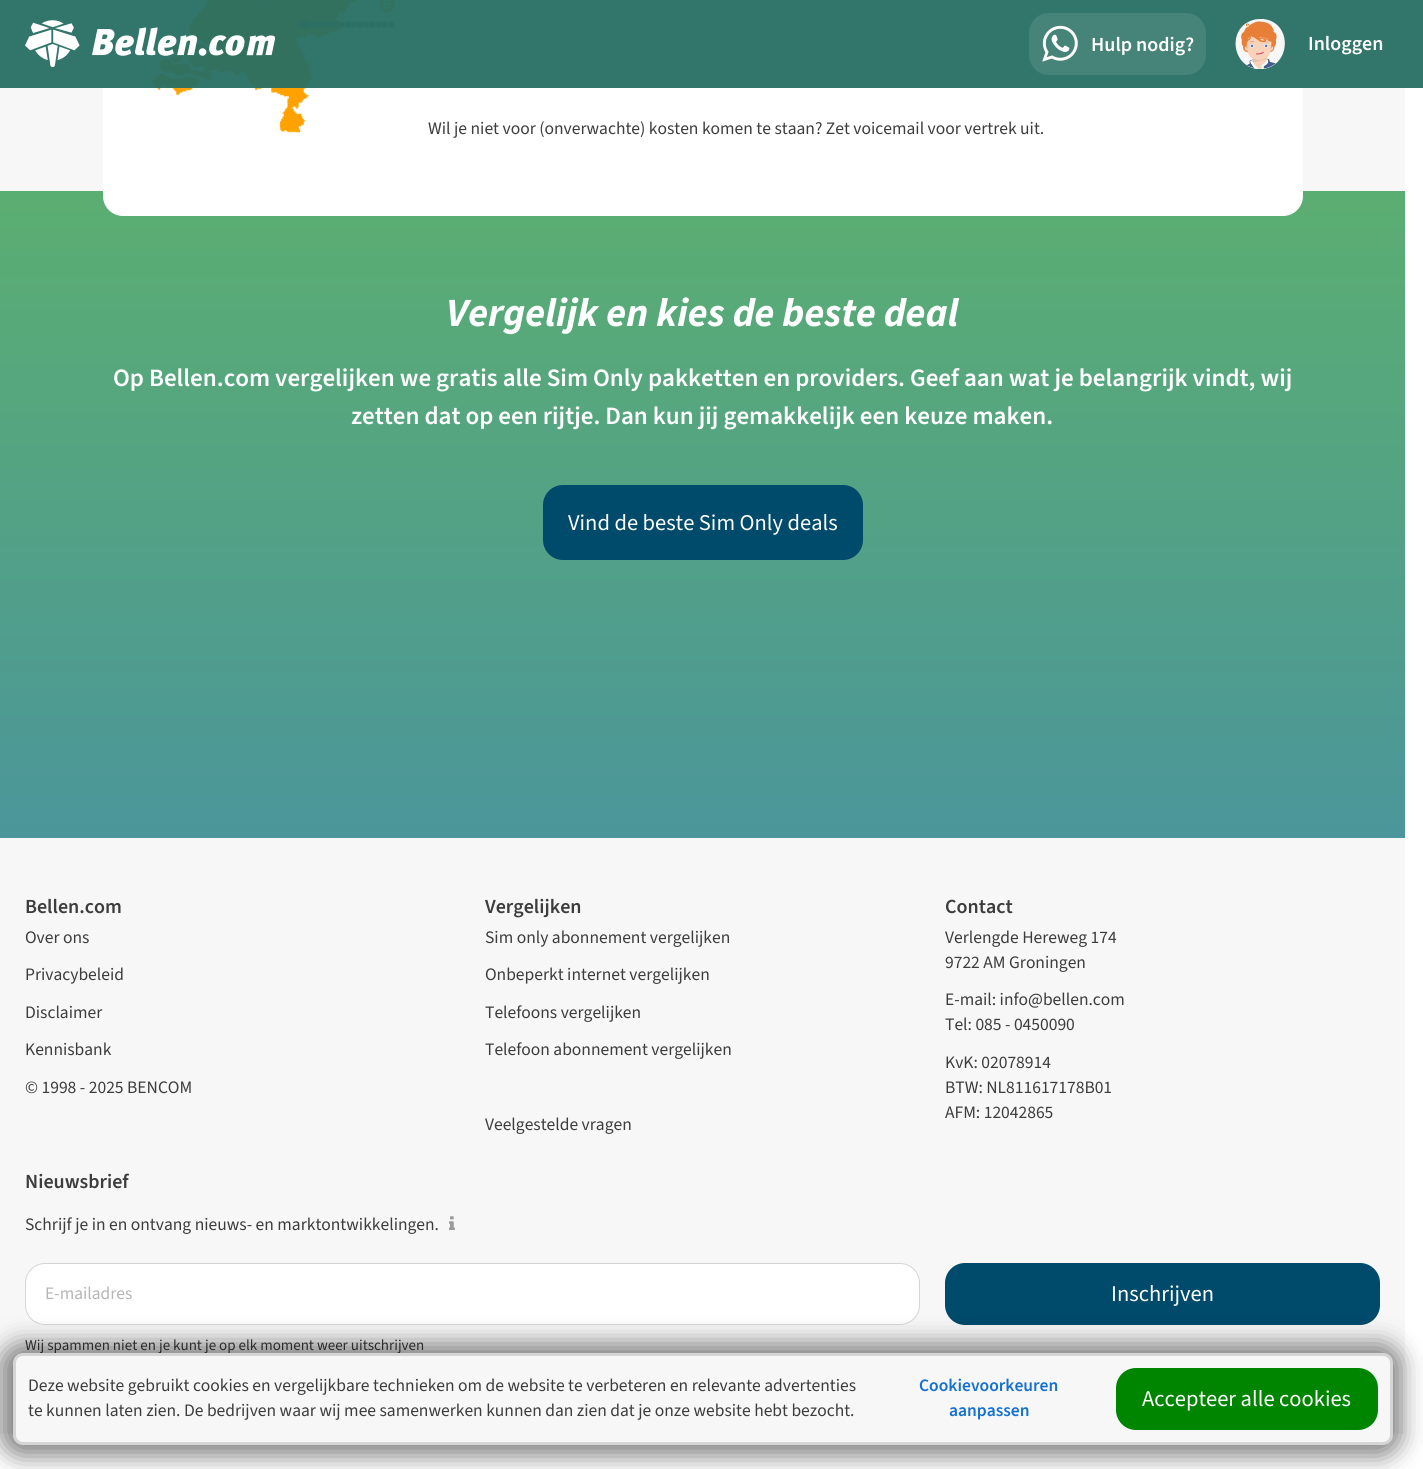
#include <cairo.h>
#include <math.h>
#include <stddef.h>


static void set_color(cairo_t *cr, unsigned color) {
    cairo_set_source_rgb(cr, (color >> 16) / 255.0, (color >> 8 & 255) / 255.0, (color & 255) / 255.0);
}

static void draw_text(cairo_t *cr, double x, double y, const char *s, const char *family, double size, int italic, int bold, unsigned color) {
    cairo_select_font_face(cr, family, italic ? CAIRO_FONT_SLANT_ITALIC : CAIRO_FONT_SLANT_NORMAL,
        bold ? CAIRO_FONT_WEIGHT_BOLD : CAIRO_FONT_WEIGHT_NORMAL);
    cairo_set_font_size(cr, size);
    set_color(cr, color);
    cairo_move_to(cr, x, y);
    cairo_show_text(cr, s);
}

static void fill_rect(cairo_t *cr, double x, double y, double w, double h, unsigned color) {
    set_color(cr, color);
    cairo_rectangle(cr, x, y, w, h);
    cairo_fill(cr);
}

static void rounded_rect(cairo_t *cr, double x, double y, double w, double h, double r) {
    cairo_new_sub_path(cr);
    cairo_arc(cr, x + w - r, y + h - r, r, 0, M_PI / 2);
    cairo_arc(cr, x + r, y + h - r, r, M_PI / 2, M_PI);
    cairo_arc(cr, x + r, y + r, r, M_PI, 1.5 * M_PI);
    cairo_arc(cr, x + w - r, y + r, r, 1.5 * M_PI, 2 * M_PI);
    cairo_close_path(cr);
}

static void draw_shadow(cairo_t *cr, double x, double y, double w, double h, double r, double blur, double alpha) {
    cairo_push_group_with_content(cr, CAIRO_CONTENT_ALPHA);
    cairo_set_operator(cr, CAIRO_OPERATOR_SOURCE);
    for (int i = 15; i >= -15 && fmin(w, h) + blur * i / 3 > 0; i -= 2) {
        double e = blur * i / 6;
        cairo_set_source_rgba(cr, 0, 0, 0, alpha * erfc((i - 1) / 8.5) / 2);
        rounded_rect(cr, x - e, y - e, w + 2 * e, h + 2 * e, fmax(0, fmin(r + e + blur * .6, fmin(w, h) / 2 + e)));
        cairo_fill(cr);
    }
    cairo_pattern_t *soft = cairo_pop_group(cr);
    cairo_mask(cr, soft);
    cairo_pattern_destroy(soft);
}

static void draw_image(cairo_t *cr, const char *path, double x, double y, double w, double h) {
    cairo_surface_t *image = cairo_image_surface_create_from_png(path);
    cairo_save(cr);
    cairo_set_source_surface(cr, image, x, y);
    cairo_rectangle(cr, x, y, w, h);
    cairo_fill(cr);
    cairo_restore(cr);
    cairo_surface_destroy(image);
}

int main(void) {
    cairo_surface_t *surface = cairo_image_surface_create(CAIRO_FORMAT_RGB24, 1423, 1469);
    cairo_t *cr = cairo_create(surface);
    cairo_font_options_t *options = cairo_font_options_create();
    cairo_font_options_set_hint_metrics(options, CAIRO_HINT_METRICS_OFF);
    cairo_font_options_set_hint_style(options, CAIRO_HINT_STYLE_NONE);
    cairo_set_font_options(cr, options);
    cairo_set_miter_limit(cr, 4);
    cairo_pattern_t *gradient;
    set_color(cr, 0xFFFFFF);
    cairo_paint(cr);
    fill_rect(cr, 0, 0, 1405, 191, 0xF7F7F7);
    gradient = cairo_pattern_create_linear(703, 191, 703, 838);
    cairo_pattern_add_color_stop_rgba(gradient, 0, 0.357, 0.682, 0.443, 1);
    cairo_pattern_add_color_stop_rgba(gradient, 1, 0.294, 0.588, 0.604, 1);
    cairo_set_source(cr, gradient);
    cairo_pattern_destroy(gradient);
    cairo_rectangle(cr, 0, 191, 1405, 647);
    cairo_fill(cr);
    set_color(cr, 0xFFFFFF);
    rounded_rect(cr, 103, -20, 1200, 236, 20);
    cairo_fill(cr);
    draw_image(cr, "assets/img4.png", 152, 0, 244, 133);
    cairo_set_source_rgba(cr, 0.157, 0.435, 0.388, 0.95);
    cairo_rectangle(cr, 0, 0, 1423, 88);
    cairo_fill(cr);
    draw_image(cr, "assets/img1.png", 25, 20, 250, 48);
    cairo_set_source_rgba(cr, 1, 1, 1, 0.1);
    rounded_rect(cr, 1029, 13, 177, 62, 20);
    cairo_fill(cr);
    draw_image(cr, "assets/img2.png", 1042, 25, 36, 37);
    draw_text(cr, 1091, 51, "Hulp nodig?", "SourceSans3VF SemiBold", 20, 0, 0, 0xFFFFFF);
    set_color(cr, 0xF7F7F7);
    cairo_new_path(cr);
    cairo_move_to(cr, 1263, 19);
    cairo_curve_to(cr, 1294, 22, 1291, 69, 1260, 69);
    cairo_curve_to(cr, 1232, 69, 1226, 28, 1253, 20);
    cairo_curve_to(cr, 1256, 19, 1259, 19, 1263, 19);
    cairo_close_path(cr);
    cairo_fill(cr);
    draw_image(cr, "assets/img3.png", 1241, 21, 36, 48);
    draw_text(cr, 1308, 50, "Inloggen", "SourceSans3VF SemiBold", 20, 0, 0, 0xFFFFFF);
    draw_text(cr, 428, 134, "Wil je niet voor (onverwachte) kosten komen te staan? Zet voicemail voor vertrek uit.", "SourceSans3VF", 17.5, 0, 0, 0x3D3D3D);
    draw_text(cr, 446, 326, "Vergelijk en kies de beste deal", "SourceSans3VF", 40, 1, 1, 0xFFFFFF);
    draw_text(cr, 113, 386, "Op Bellen.com vergelijken we gratis alle Sim Only pakketten en providers. Geef aan wat je belangrijk vindt, wij", "SourceSans3VF SemiBold", 25, 0, 0, 0xFFFFFF);
    draw_text(cr, 351, 424, "zetten dat op een rijtje. Dan kun jij gemakkelijk een keuze maken.", "SourceSans3VF SemiBold", 25, 0, 0, 0xFFFFFF);
    set_color(cr, 0x004A6B);
    rounded_rect(cr, 543, 485, 320, 75, 20);
    cairo_fill(cr);
    draw_text(cr, 568, 530, "Vind de beste Sim Only deals", "SourceSans3VF", 22.5, 0, 0, 0xFFFFFF);
    fill_rect(cr, 0, 838, 1405, 596, 0xF7F7F7);
    draw_text(cr, 25, 913, "Bellen.com", "SourceSans3VF SemiBold", 20, 0, 0, 0x3D3D3D);
    draw_text(cr, 25, 943, "Over ons", "SourceSans3VF", 17.5, 0, 0, 0x3D3D3D);
    draw_text(cr, 25, 980, "Privacybeleid", "SourceSans3VF", 17.5, 0, 0, 0x3D3D3D);
    draw_text(cr, 25, 1018, "Disclaimer", "SourceSans3VF", 17.5, 0, 0, 0x3D3D3D);
    draw_text(cr, 25, 1055, "Kennisbank", "SourceSans3VF", 17.5, 0, 0, 0x3D3D3D);
    draw_text(cr, 25, 1093, "© 1998 - 2025 BENCOM", "SourceSans3VF", 17.5, 0, 0, 0x3D3D3D);
    draw_text(cr, 485, 913, "Vergelijken", "SourceSans3VF SemiBold", 20, 0, 0, 0x3D3D3D);
    draw_text(cr, 485, 943, "Sim only abonnement vergelijken", "SourceSans3VF", 17.5, 0, 0, 0x3D3D3D);
    draw_text(cr, 485, 980, "Onbeperkt internet vergelijken", "SourceSans3VF", 17.5, 0, 0, 0x3D3D3D);
    draw_text(cr, 485, 1018, "Telefoons vergelijken", "SourceSans3VF", 17.5, 0, 0, 0x3D3D3D);
    draw_text(cr, 485, 1055, "Telefoon abonnement vergelijken", "SourceSans3VF", 17.5, 0, 0, 0x3D3D3D);
    draw_text(cr, 485, 1130, "Veelgestelde vragen", "SourceSans3VF", 17.5, 0, 0, 0x3D3D3D);
    draw_text(cr, 945, 913, "Contact", "SourceSans3VF SemiBold", 20, 0, 0, 0x3D3D3D);
    draw_text(cr, 945, 943, "Verlengde Hereweg 174", "SourceSans3VF", 17.5, 0, 0, 0x3D3D3D);
    draw_text(cr, 945, 968, "9722 AM Groningen", "SourceSans3VF", 17.5, 0, 0, 0x3D3D3D);
    draw_text(cr, 945, 1005, "E-mail: info@bellen.com", "SourceSans3VF", 17.5, 0, 0, 0x3D3D3D);
    draw_text(cr, 945, 1030, "Tel: 085 - 0450090", "SourceSans3VF", 17.5, 0, 0, 0x3D3D3D);
    draw_text(cr, 945, 1068, "KvK: 02078914", "SourceSans3VF", 17.5, 0, 0, 0x3D3D3D);
    draw_text(cr, 945, 1093, "BTW: NL811617178B01", "SourceSans3VF", 17.5, 0, 0, 0x3D3D3D);
    draw_text(cr, 945, 1118, "AFM: 12042865", "SourceSans3VF", 17.5, 0, 0, 0x3D3D3D);
    draw_text(cr, 25, 1188, "Nieuwsbrief", "SourceSans3VF SemiBold", 20, 0, 0, 0x3D3D3D);
    draw_text(cr, 25, 1230, "Schrijf je in en ontvang nieuws- en marktontwikkelingen.", "SourceSans3VF", 17.5, 0, 0, 0x3D3D3D);
    draw_image(cr, "assets/img5.png", 449, 1216, 6, 14);
    set_color(cr, 0xFFFFFF);
    rounded_rect(cr, 25.5, 1263.5, 894, 61, 19.5);
    cairo_fill_preserve(cr);
    set_color(cr, 0xD5D5D5);
    cairo_set_line_width(cr, 1);
    cairo_stroke(cr);
    draw_text(cr, 45, 1299, "E-mailadres", "SourceSans3VF", 17.5, 0, 0, 0xB5B5B5);
    set_color(cr, 0x004A6B);
    rounded_rect(cr, 945, 1263, 435, 62, 20);
    cairo_fill(cr);
    draw_text(cr, 1111, 1301, "Inschrijven", "SourceSans3VF", 22.5, 0, 0, 0xFFFFFF);
    draw_text(cr, 25, 1350, "Wij spammen niet en je kunt je op elk moment weer uitschrijven", "SourceSans3VF", 15, 0, 0, 0x3D3D3D);
    set_color(cr, 0x000000);
    draw_shadow(cr, 1, 1344, 1400, 112, 20, 12.5, 0.5);
    set_color(cr, 0xF7F7F7);
    rounded_rect(cr, 14.5, 1354.5, 1377, 89, 8.5);
    cairo_fill_preserve(cr);
    set_color(cr, 0xD5D5D5);
    cairo_set_line_width(cr, 3);
    cairo_stroke(cr);
    draw_text(cr, 28, 1391, "Deze website gebruikt cookies en vergelijkbare technieken om de website te verbeteren en relevante advertenties", "SourceSans3VF", 17.5, 0, 0, 0x3D3D3D);
    draw_text(cr, 28, 1416, "te kunnen laten zien. De bedrijven waar wij mee samenwerken kunnen dan zien dat je onze website hebt bezocht.", "SourceSans3VF", 17.5, 0, 0, 0x3D3D3D);
    draw_text(cr, 919, 1391, "Cookievoorkeuren", "SourceSans3VF SemiBold", 17.5, 0, 0, 0x1471D2);
    draw_text(cr, 949, 1416, "aanpassen", "SourceSans3VF SemiBold", 17.5, 0, 0, 0x1471D2);
    set_color(cr, 0x008500);
    rounded_rect(cr, 1116, 1368, 262, 62, 20);
    cairo_fill(cr);
    draw_text(cr, 1142, 1406, "Accepteer alle cookies", "SourceSans3VF", 22.5, 0, 0, 0xFFFFFF);
    cairo_surface_write_to_png(surface, "output.png");
    cairo_font_options_destroy(options);
    cairo_destroy(cr);
    cairo_surface_destroy(surface);
    return 0;
}
